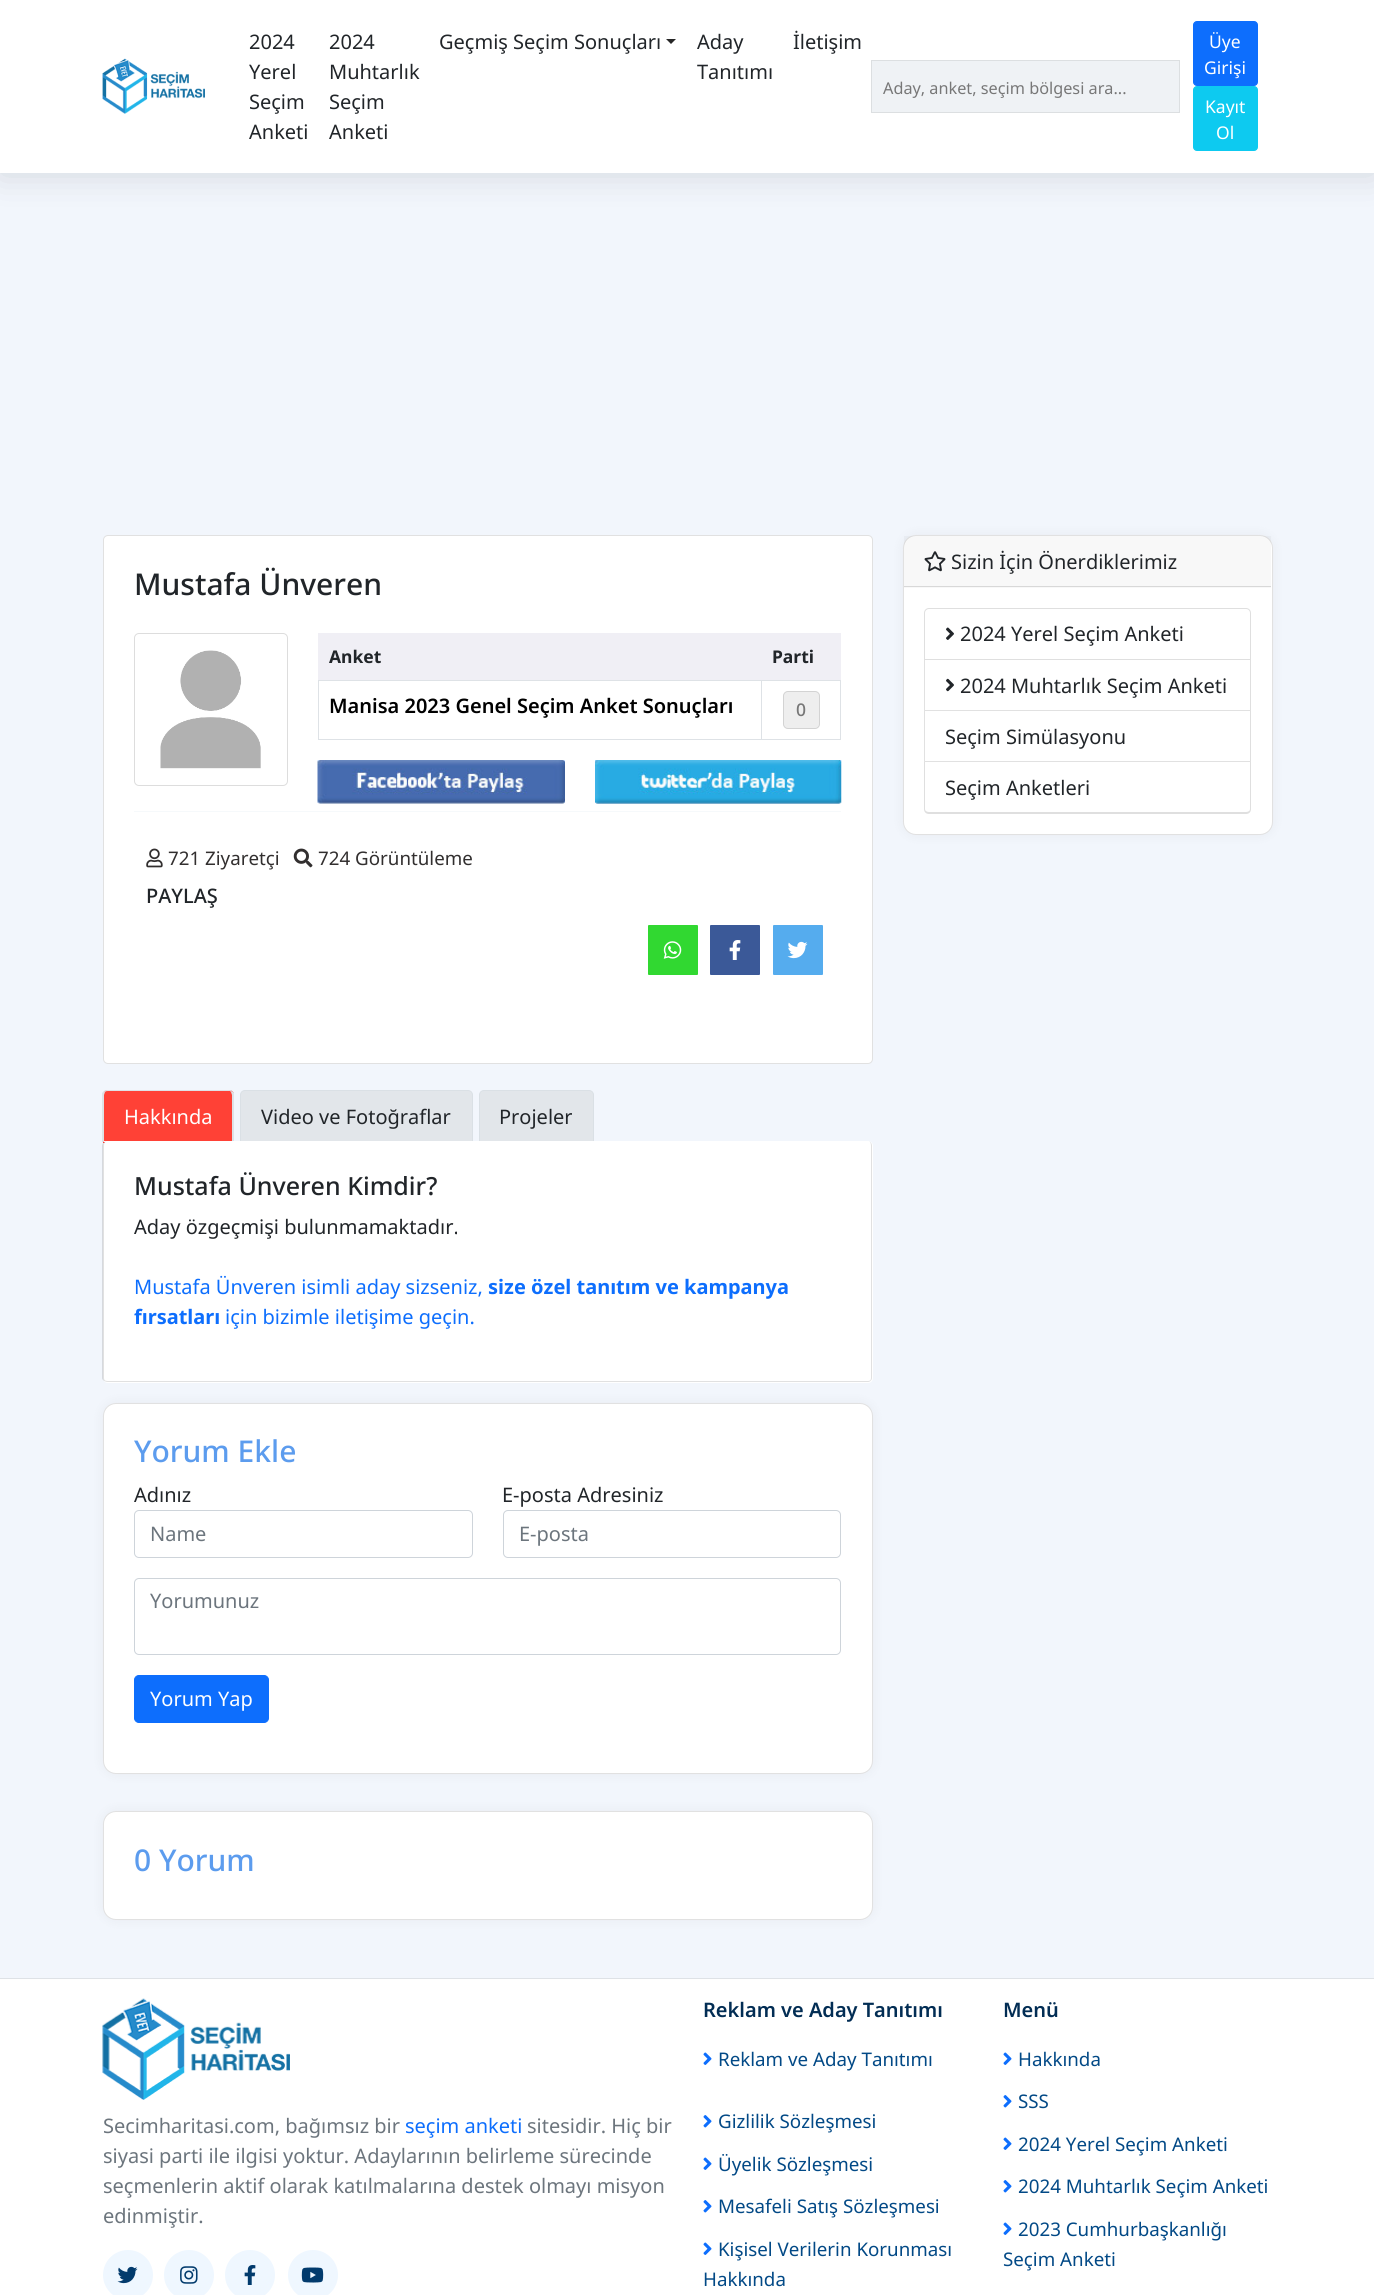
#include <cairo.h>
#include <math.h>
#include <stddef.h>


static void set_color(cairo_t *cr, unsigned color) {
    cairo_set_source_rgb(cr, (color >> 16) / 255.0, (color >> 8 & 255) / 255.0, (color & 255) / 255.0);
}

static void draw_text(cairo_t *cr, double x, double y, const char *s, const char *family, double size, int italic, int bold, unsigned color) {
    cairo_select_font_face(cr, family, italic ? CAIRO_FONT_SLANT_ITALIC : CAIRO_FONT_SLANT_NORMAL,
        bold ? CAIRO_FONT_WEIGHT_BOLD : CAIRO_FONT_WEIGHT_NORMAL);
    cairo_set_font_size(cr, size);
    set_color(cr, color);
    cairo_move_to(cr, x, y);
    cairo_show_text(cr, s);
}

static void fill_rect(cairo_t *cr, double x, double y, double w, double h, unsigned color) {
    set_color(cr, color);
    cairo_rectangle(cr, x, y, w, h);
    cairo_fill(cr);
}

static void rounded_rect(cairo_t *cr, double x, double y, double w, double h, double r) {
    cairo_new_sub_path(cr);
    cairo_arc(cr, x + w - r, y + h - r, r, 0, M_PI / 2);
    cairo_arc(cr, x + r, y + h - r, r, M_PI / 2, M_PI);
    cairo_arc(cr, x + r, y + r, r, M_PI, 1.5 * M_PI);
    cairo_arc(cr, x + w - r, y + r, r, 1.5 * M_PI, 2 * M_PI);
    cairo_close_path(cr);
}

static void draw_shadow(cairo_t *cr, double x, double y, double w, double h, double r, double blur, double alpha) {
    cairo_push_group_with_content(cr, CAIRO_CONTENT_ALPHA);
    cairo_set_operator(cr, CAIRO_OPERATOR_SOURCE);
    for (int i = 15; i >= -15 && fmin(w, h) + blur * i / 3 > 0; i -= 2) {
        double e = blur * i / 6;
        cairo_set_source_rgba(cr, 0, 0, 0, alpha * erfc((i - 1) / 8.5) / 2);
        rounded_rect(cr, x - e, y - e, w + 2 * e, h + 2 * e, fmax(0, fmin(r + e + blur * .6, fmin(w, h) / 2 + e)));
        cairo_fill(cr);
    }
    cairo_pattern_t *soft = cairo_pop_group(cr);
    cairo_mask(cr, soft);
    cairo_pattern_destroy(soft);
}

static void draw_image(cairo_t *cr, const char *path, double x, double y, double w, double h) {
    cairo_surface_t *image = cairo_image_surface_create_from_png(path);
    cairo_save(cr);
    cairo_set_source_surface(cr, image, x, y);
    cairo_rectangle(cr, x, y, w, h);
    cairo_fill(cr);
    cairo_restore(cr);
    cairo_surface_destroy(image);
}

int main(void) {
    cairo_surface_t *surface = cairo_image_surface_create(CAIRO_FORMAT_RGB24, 1374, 2295);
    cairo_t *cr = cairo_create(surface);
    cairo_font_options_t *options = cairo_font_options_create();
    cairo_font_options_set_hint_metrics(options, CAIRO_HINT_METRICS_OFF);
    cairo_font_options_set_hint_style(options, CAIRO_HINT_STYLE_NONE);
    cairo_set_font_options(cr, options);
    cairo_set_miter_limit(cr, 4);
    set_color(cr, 0xFFFFFF);
    cairo_paint(cr);
    fill_rect(cr, 0, 173, 1374, 1805, 0xF2F6FC);
    set_color(cr, 0x212832);
    draw_shadow(cr, 0, 3, 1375, 172, 0, 17.5, 0.15);
    fill_rect(cr, 0, 0, 1374, 173, 0xFFFFFF);
    draw_image(cr, "assets/img1.png", 102, 58, 103, 56);
    draw_text(cr, 249, 49, "2024", "Noto Sans", 20, 0, 0, 0x212529);
    draw_text(cr, 249, 79, "Yerel", "Noto Sans", 20, 0, 0, 0x212529);
    draw_text(cr, 249, 109, "Seçim", "Noto Sans", 20, 0, 0, 0x212529);
    draw_text(cr, 249, 139, "Anketi", "Noto Sans", 20, 0, 0, 0x212529);
    draw_text(cr, 329, 49, "2024", "Noto Sans", 20, 0, 0, 0x212529);
    draw_text(cr, 329, 79, "Muhtarlık", "Noto Sans", 20, 0, 0, 0x212529);
    draw_text(cr, 329, 109, "Seçim", "Noto Sans", 20, 0, 0, 0x212529);
    draw_text(cr, 329, 139, "Anketi", "Noto Sans", 20, 0, 0, 0x212529);
    draw_text(cr, 439, 49, "Geçmiş Seçim Sonuçları", "Noto Sans", 20, 0, 0, 0x212529);
    set_color(cr, 0x262626);
    cairo_new_path(cr);
    cairo_move_to(cr, 666, 39);
    cairo_line_to(cr, 676, 39);
    cairo_line_to(cr, 671, 44);
    cairo_close_path(cr);
    cairo_fill(cr);
    draw_text(cr, 697, 49, "Aday", "Noto Sans", 20, 0, 0, 0x212529);
    draw_text(cr, 697, 79, "Tanıtımı", "Noto Sans", 20, 0, 0, 0x212529);
    draw_text(cr, 793, 49, "İletişim", "Noto Sans", 20, 0, 0, 0x212529);
    set_color(cr, 0xEFF2F5);
    cairo_rectangle(cr, 871.5, 60.5, 308, 52);
    cairo_fill_preserve(cr);
    set_color(cr, 0xDCDFE1);
    cairo_set_line_width(cr, 1);
    cairo_stroke(cr);
    draw_text(cr, 883, 94, "Aday, anket, seçim bölgesi ara...", "Noto Sans", 16.25, 0, 0, 0x777777);
    set_color(cr, 0x0D6EFD);
    rounded_rect(cr, 1193.5, 21.5, 64, 64, 3.5);
    cairo_fill_preserve(cr);
    cairo_stroke(cr);
    draw_text(cr, 1209, 48, "Üye", "Noto Sans", 17.5, 0, 0, 0xFFFFFF);
    draw_text(cr, 1204, 74, "Girişi", "Noto Sans", 17.5, 0, 0, 0xFFFFFF);
    set_color(cr, 0x0DCAF0);
    rounded_rect(cr, 1193.5, 86.5, 64, 64, 3.5);
    cairo_fill_preserve(cr);
    cairo_stroke(cr);
    draw_text(cr, 1205, 113, "Kayıt", "Noto Sans", 17.5, 0, 0, 0xFFFFFF);
    draw_text(cr, 1216, 139, "Ol", "Noto Sans", 17.5, 0, 0, 0xFFFFFF);
    rounded_rect(cr, 103, 535, 770, 529, 5);
    cairo_fill(cr);
    rounded_rect(cr, 103.5, 535.5, 769, 528, 4.5);
    cairo_set_source_rgba(cr, 0, 0, 0, 0.12);
    cairo_stroke(cr);
    draw_text(cr, 134, 595, "Mustafa Ünveren", "Noto Sans Medium", 30, 0, 0, 0x212529);
    rounded_rect(cr, 134.5, 633.5, 153, 152, 4.5);
    set_color(cr, 0xDDDDDD);
    cairo_stroke(cr);
    draw_image(cr, "assets/img2.png", 160, 650, 101, 119);
    fill_rect(cr, 319, 634, 521, 46, 0xF0EFF5);
    fill_rect(cr, 318, 633, 523, 1, 0xF0EFF5);
    fill_rect(cr, 840, 633, 1, 48, 0xF0EFF5);
    fill_rect(cr, 318, 633, 1, 48, 0xF0EFF5);
    draw_text(cr, 329, 663, "Anket", "Noto Sans", 17.5, 0, 1, 0x212529);
    draw_text(cr, 772, 663, "Parti", "Noto Sans", 17.5, 0, 1, 0x212529);
    fill_rect(cr, 318, 680, 523, 1, 0xDEE2E6);
    fill_rect(cr, 318, 739, 523, 1, 0xDEE2E6);
    fill_rect(cr, 318, 680, 1, 60, 0xDEE2E6);
    draw_text(cr, 329, 713, "Manisa 2023 Genel Seçim Anket Sonuçları", "Noto Sans SemiBold", 20, 0, 0, 0x000000);
    fill_rect(cr, 840, 680, 1, 60, 0xDEE2E6);
    fill_rect(cr, 761, 680, 1, 60, 0xDEE2E6);
    set_color(cr, 0xEEEEEE);
    rounded_rect(cr, 783.5, 691.5, 36, 37, 4.5);
    cairo_fill_preserve(cr);
    set_color(cr, 0xD3D3D3);
    cairo_stroke(cr);
    draw_text(cr, 796, 716, "0", "Noto Sans Medium", 17.5, 0, 0, 0x777777);
    draw_image(cr, "assets/img3.png", 317, 760, 248, 44);
    draw_image(cr, "assets/img4.png", 595, 760, 247, 44);
    fill_rect(cr, 134, 811, 707, 1, 0xF6F9FB);
    draw_image(cr, "assets/img5.png", 146, 848, 17, 20);
    draw_text(cr, 168, 865, "721 Ziyaretçi", "Noto Sans", 18.75, 0, 0, 0x322F2F);
    draw_image(cr, "assets/img6.png", 293, 848, 20, 20);
    draw_text(cr, 318, 865, "724 Görüntüleme", "Noto Sans", 18.75, 0, 0, 0x322F2F);
    draw_text(cr, 146, 903, "PAYLAŞ", "Noto Sans Medium", 20, 0, 0, 0x212529);
    set_color(cr, 0x31D831);
    rounded_rect(cr, 648, 925, 50, 50, 1);
    cairo_fill(cr);
    draw_image(cr, "assets/img7.png", 663, 941, 19, 18);
    set_color(cr, 0x3B5998);
    rounded_rect(cr, 710, 925, 50, 50, 1);
    cairo_fill(cr);
    draw_image(cr, "assets/img8.png", 729, 940, 12, 20);
    set_color(cr, 0x55ACEE);
    rounded_rect(cr, 773, 925, 50, 50, 1);
    cairo_fill(cr);
    draw_image(cr, "assets/img9.png", 787, 941, 21, 18);
    set_color(cr, 0xFF4136);
    cairo_new_path(cr);
    cairo_move_to(cr, 108, 1090);
    cairo_line_to(cr, 229, 1090);
    cairo_curve_to(cr, 232, 1090, 234, 1092, 234, 1095);
    cairo_line_to(cr, 234, 1143);
    cairo_line_to(cr, 103, 1143);
    cairo_line_to(cr, 103, 1095);
    cairo_curve_to(cr, 103, 1092, 105, 1090, 108, 1090);
    cairo_close_path(cr);
    cairo_fill(cr);
    set_color(cr, 0xDEE2E6);
    cairo_new_path(cr);
    cairo_move_to(cr, 108, 1090);
    cairo_curve_to(cr, 106, 1090, 105, 1090, 104, 1091);
    cairo_line_to(cr, 105, 1092);
    cairo_curve_to(cr, 106, 1091, 107, 1091, 108, 1091);
    cairo_line_to(cr, 230, 1091);
    cairo_line_to(cr, 231, 1092);
    cairo_line_to(cr, 232, 1091);
    cairo_curve_to(cr, 232, 1090, 230, 1090, 229, 1090);
    cairo_close_path(cr);
    cairo_fill(cr);
    cairo_new_path(cr);
    cairo_move_to(cr, 234, 1142);
    cairo_line_to(cr, 232, 1141);
    cairo_line_to(cr, 232, 1095);
    cairo_line_to(cr, 231, 1092);
    cairo_line_to(cr, 232, 1091);
    cairo_line_to(cr, 234, 1093);
    cairo_close_path(cr);
    cairo_fill(cr);
    set_color(cr, 0xFFFFFF);
    cairo_new_path(cr);
    cairo_move_to(cr, 233, 1142);
    cairo_line_to(cr, 103, 1142);
    cairo_line_to(cr, 104, 1141);
    cairo_line_to(cr, 232, 1141);
    cairo_close_path(cr);
    cairo_fill(cr);
    set_color(cr, 0xDEE2E6);
    cairo_new_path(cr);
    cairo_move_to(cr, 102, 1093);
    cairo_line_to(cr, 104, 1091);
    cairo_line_to(cr, 105, 1092);
    cairo_line_to(cr, 104, 1095);
    cairo_line_to(cr, 104, 1141);
    cairo_line_to(cr, 103, 1142);
    cairo_line_to(cr, 102, 1142);
    cairo_close_path(cr);
    cairo_fill(cr);
    draw_text(cr, 124, 1124, "Hakkında", "Noto Sans", 20, 0, 0, 0xFFFFFF);
    set_color(cr, 0xE2E6EA);
    cairo_new_path(cr);
    cairo_move_to(cr, 245, 1090.5);
    cairo_line_to(cr, 468, 1090.5);
    cairo_curve_to(cr, 470.5, 1090.5, 472.5, 1092.5, 472.5, 1095);
    cairo_line_to(cr, 472.5, 1142.5);
    cairo_line_to(cr, 240.5, 1142.5);
    cairo_line_to(cr, 240.5, 1095);
    cairo_curve_to(cr, 240.5, 1092.5, 242.5, 1090.5, 245, 1090.5);
    cairo_close_path(cr);
    cairo_fill_preserve(cr);
    set_color(cr, 0xDAE0E5);
    cairo_stroke(cr);
    draw_text(cr, 261, 1124, "Video ve Fotoğraflar", "Noto Sans", 20, 0, 0, 0x212529);
    set_color(cr, 0xE2E6EA);
    cairo_new_path(cr);
    cairo_move_to(cr, 484, 1090.5);
    cairo_line_to(cr, 589, 1090.5);
    cairo_curve_to(cr, 591.5, 1090.5, 593.5, 1092.5, 593.5, 1095);
    cairo_line_to(cr, 593.5, 1142.5);
    cairo_line_to(cr, 479.5, 1142.5);
    cairo_line_to(cr, 479.5, 1095);
    cairo_curve_to(cr, 479.5, 1092.5, 481.5, 1090.5, 484, 1090.5);
    cairo_close_path(cr);
    cairo_fill_preserve(cr);
    set_color(cr, 0xDAE0E5);
    cairo_stroke(cr);
    draw_text(cr, 499, 1124, "Projeler", "Noto Sans", 20, 0, 0, 0x212529);
    set_color(cr, 0xFFFFFF);
    rounded_rect(cr, 103, 1141, 770, 242, 5);
    cairo_fill(cr);
    cairo_set_source_rgba(cr, 0, 0, 0, 0.12);
    cairo_set_fill_rule(cr, CAIRO_FILL_RULE_EVEN_ODD);
    cairo_new_path(cr);
    cairo_move_to(cr, 108, 1141);
    cairo_line_to(cr, 868, 1141);
    cairo_curve_to(cr, 870, 1141, 872, 1143, 872, 1146);
    cairo_line_to(cr, 872, 1378);
    cairo_curve_to(cr, 872, 1380, 870, 1382, 868, 1382);
    cairo_line_to(cr, 108, 1382);
    cairo_curve_to(cr, 105, 1382, 102, 1380, 102, 1378);
    cairo_line_to(cr, 102, 1146);
    cairo_curve_to(cr, 102, 1143, 105, 1141, 108, 1141);
    cairo_close_path(cr);
    cairo_move_to(cr, 108, 1141);
    cairo_line_to(cr, 868, 1141);
    cairo_curve_to(cr, 870, 1141, 871, 1143, 871, 1146);
    cairo_line_to(cr, 871, 1378);
    cairo_curve_to(cr, 871, 1380, 870, 1381, 868, 1381);
    cairo_line_to(cr, 108, 1381);
    cairo_curve_to(cr, 105, 1381, 104, 1380, 104, 1378);
    cairo_line_to(cr, 104, 1146);
    cairo_curve_to(cr, 104, 1143, 105, 1141, 108, 1141);
    cairo_close_path(cr);
    cairo_fill(cr);
    draw_text(cr, 134, 1195, "Mustafa Ünveren Kimdir?", "Noto Sans Medium", 25, 0, 0, 0x212529);
    draw_text(cr, 134, 1234, "Aday özgeçmişi bulunmamaktadır.", "Noto Sans", 20, 0, 0, 0x212529);
    draw_text(cr, 134, 1294, "Mustafa Ünveren isimli aday sizseniz,", "Noto Sans", 20, 0, 0, 0x0D6EFD);
    draw_text(cr, 488, 1294, "size özel tanıtım ve kampanya", "Noto Sans", 20, 0, 1, 0x0D6EFD);
    draw_text(cr, 134, 1324, "fırsatları", "Noto Sans", 20, 0, 1, 0x0D6EFD);
    draw_text(cr, 225, 1324, "için bizimle iletişime geçin.", "Noto Sans", 20, 0, 0, 0x0D6EFD);
    set_color(cr, 0x888888);
    draw_shadow(cr, 103, 1403, 770, 371, 13, 6, 0.1);
    set_color(cr, 0xFFFFFF);
    rounded_rect(cr, 103, 1403, 770, 371, 13);
    cairo_fill(cr);
    rounded_rect(cr, 103.5, 1403.5, 769, 370, 12.5);
    cairo_set_source_rgba(cr, 0, 0, 0, 0.12);
    cairo_stroke(cr);
    draw_text(cr, 134, 1462, "Yorum Ekle", "Noto Sans Medium", 30, 0, 0, 0x5C9CEE);
    draw_text(cr, 134, 1502, "Adınız", "Noto Sans", 20, 0, 0, 0x212529);
    rounded_rect(cr, 134.5, 1510.5, 338, 47, 4.5);
    set_color(cr, 0xCED4DA);
    cairo_stroke(cr);
    draw_text(cr, 150, 1541, "Name", "Noto Sans", 20, 0, 0, 0x6C757D);
    draw_text(cr, 502, 1502, "E-posta Adresiniz", "Noto Sans", 20, 0, 0, 0x212529);
    rounded_rect(cr, 503.5, 1510.5, 337, 47, 4.5);
    set_color(cr, 0xCED4DA);
    cairo_stroke(cr);
    draw_text(cr, 519, 1541, "E-posta", "Noto Sans", 20, 0, 0, 0x6C757D);
    rounded_rect(cr, 134.5, 1578.5, 706, 76, 4.5);
    set_color(cr, 0xCED4DA);
    cairo_stroke(cr);
    draw_text(cr, 150, 1608, "Yorumunuz", "Noto Sans", 20, 0, 0, 0x6C757D);
    set_color(cr, 0x0D6EFD);
    rounded_rect(cr, 134.5, 1675.5, 134, 47, 4.5);
    cairo_fill_preserve(cr);
    cairo_stroke(cr);
    draw_text(cr, 150, 1706, "Yorum Yap", "Noto Sans", 20, 0, 0, 0xFFFFFF);
    set_color(cr, 0x888888);
    draw_shadow(cr, 103, 1811, 770, 109, 13, 6, 0.1);
    set_color(cr, 0xFFFFFF);
    rounded_rect(cr, 103, 1811, 770, 109, 13);
    cairo_fill(cr);
    rounded_rect(cr, 103.5, 1811.5, 769, 108, 12.5);
    cairo_set_source_rgba(cr, 0, 0, 0, 0.12);
    cairo_stroke(cr);
    draw_text(cr, 134, 1871, "0 Yorum", "Noto Sans Medium", 30, 0, 0, 0x5C9CEE);
    set_color(cr, 0x888888);
    draw_shadow(cr, 903, 535, 370, 300, 13, 6, 0.1);
    set_color(cr, 0xFFFFFF);
    rounded_rect(cr, 903, 535, 370, 300, 13);
    cairo_fill(cr);
    rounded_rect(cr, 903.5, 535.5, 369, 299, 12.5);
    cairo_set_source_rgba(cr, 0, 0, 0, 0.12);
    cairo_stroke(cr);
    cairo_set_source_rgba(cr, 0, 0, 0, 0.03);
    cairo_rectangle(cr, 904, 536, 367, 52);
    cairo_fill(cr);
    fill_rect(cr, 904, 586, 367, 1, 0xD8D8D8);
    draw_image(cr, "assets/img10.png", 924, 551, 22, 21);
    draw_text(cr, 951, 569, "Sizin İçin Önerdiklerimiz", "Noto Sans", 20, 0, 0, 0x212529);
    cairo_new_path(cr);
    cairo_move_to(cr, 929, 608.5);
    cairo_line_to(cr, 1246, 608.5);
    cairo_curve_to(cr, 1248.5, 608.5, 1250.5, 610.5, 1250.5, 613);
    cairo_line_to(cr, 1250.5, 659.5);
    cairo_line_to(cr, 924.5, 659.5);
    cairo_line_to(cr, 924.5, 613);
    cairo_curve_to(cr, 924.5, 610.5, 926.5, 608.5, 929, 608.5);
    cairo_close_path(cr);
    set_color(cr, 0xDFDFDF);
    cairo_stroke(cr);
    draw_image(cr, "assets/img11.png", 946, 627, 8, 13);
    draw_text(cr, 960, 641, "2024 Yerel Seçim Anketi", "Noto Sans", 20, 0, 0, 0x212529);
    set_color(cr, 0xDFDFDF);
    cairo_set_fill_rule(cr, CAIRO_FILL_RULE_WINDING);
    cairo_new_path(cr);
    cairo_move_to(cr, 1251, 660);
    cairo_line_to(cr, 1251, 711);
    cairo_line_to(cr, 1250, 710);
    cairo_line_to(cr, 1250, 660);
    cairo_close_path(cr);
    cairo_fill(cr);
    cairo_set_source_rgba(cr, 0, 0, 0, 0.12);
    cairo_new_path(cr);
    cairo_move_to(cr, 1251, 711);
    cairo_line_to(cr, 924, 711);
    cairo_line_to(cr, 925, 710);
    cairo_line_to(cr, 1250, 710);
    cairo_close_path(cr);
    cairo_fill(cr);
    cairo_new_path(cr);
    cairo_move_to(cr, 924, 711);
    cairo_line_to(cr, 924, 660);
    cairo_line_to(cr, 925, 660);
    cairo_line_to(cr, 925, 710);
    cairo_close_path(cr);
    cairo_fill(cr);
    draw_image(cr, "assets/img12.png", 946, 678, 8, 14);
    draw_text(cr, 960, 693, "2024 Muhtarlık Seçim Anketi", "Noto Sans", 20, 0, 0, 0x212529);
    set_color(cr, 0xDFDFDF);
    cairo_new_path(cr);
    cairo_move_to(cr, 1251, 711);
    cairo_line_to(cr, 1251, 762);
    cairo_line_to(cr, 1250, 761);
    cairo_line_to(cr, 1250, 711);
    cairo_close_path(cr);
    cairo_fill(cr);
    cairo_set_source_rgba(cr, 0, 0, 0, 0.12);
    cairo_new_path(cr);
    cairo_move_to(cr, 1251, 762);
    cairo_line_to(cr, 924, 762);
    cairo_line_to(cr, 925, 761);
    cairo_line_to(cr, 1250, 761);
    cairo_close_path(cr);
    cairo_fill(cr);
    cairo_new_path(cr);
    cairo_move_to(cr, 924, 762);
    cairo_line_to(cr, 924, 711);
    cairo_line_to(cr, 925, 711);
    cairo_line_to(cr, 925, 761);
    cairo_close_path(cr);
    cairo_fill(cr);
    draw_text(cr, 945, 744, "Seçim Simülasyonu", "Noto Sans", 20, 0, 0, 0x212529);
    set_color(cr, 0xDFDFDF);
    cairo_set_fill_rule(cr, CAIRO_FILL_RULE_EVEN_ODD);
    cairo_new_path(cr);
    cairo_move_to(cr, 924, 762);
    cairo_line_to(cr, 1251, 762);
    cairo_line_to(cr, 1251, 809);
    cairo_curve_to(cr, 1251, 812, 1249, 814, 1246, 814);
    cairo_line_to(cr, 929, 814);
    cairo_curve_to(cr, 926, 814, 924, 812, 924, 809);
    cairo_close_path(cr);
    cairo_move_to(cr, 925, 762);
    cairo_line_to(cr, 1250, 762);
    cairo_line_to(cr, 1250, 809);
    cairo_curve_to(cr, 1250, 811, 1248, 812, 1246, 812);
    cairo_line_to(cr, 929, 812);
    cairo_curve_to(cr, 927, 812, 925, 811, 925, 809);
    cairo_close_path(cr);
    cairo_fill(cr);
    draw_text(cr, 945, 795, "Seçim Anketleri", "Noto Sans", 20, 0, 0, 0x212529);
    fill_rect(cr, 0, 1978, 1374, 1, 0xDEE2E6);
    draw_image(cr, "assets/img13.png", 102, 1998, 188, 102);
    draw_text(cr, 103, 2133, "Secimharitasi.com, bağımsız bir", "Noto Sans", 20, 0, 0, 0x6C757D);
    draw_text(cr, 405, 2133, "seçim anketi", "Noto Sans", 20, 0, 0, 0x0D6EFD);
    draw_text(cr, 527, 2133, "sitesidir. Hiç bir", "Noto Sans", 20, 0, 0, 0x6C757D);
    draw_text(cr, 103, 2163, "siyasi parti ile ilgisi yoktur. Adaylarının belirleme sürecinde", "Noto Sans", 20, 0, 0, 0x6C757D);
    draw_text(cr, 103, 2193, "seçmenlerin aktif olarak katılmalarına destek olmayı misyon", "Noto Sans", 20, 0, 0, 0x6C757D);
    draw_text(cr, 103, 2223, "edinmiştir.", "Noto Sans", 20, 0, 0, 0x6C757D);
    set_color(cr, 0xEFF7FF);
    cairo_new_path(cr);
    cairo_arc(cr, 128, 2275, 25, 0, 2 * M_PI);
    cairo_fill(cr);
    draw_image(cr, "assets/img14.png", 117, 2266, 21, 18);
    cairo_arc(cr, 189, 2275, 25, 0, 2 * M_PI);
    cairo_fill(cr);
    draw_image(cr, "assets/img15.png", 180, 2266, 18, 18);
    cairo_arc(cr, 250, 2275, 25, 0, 2 * M_PI);
    cairo_fill(cr);
    draw_image(cr, "assets/img16.png", 244, 2265, 12, 20);
    cairo_arc(cr, 313, 2275, 25, 0, 2 * M_PI);
    cairo_fill(cr);
    draw_image(cr, "assets/img17.png", 301, 2267, 23, 16);
    draw_text(cr, 703, 2017, "Reklam ve Aday Tanıtımı", "Noto Sans SemiBold", 20, 0, 0, 0x022D54);
    draw_image(cr, "assets/img18.png", 703, 2052, 9, 13);
    draw_text(cr, 718, 2066, "Reklam ve Aday Tanıtımı", "Noto Sans", 18.75, 0, 0, 0x024986);
    draw_image(cr, "assets/img19.png", 703, 2115, 9, 13);
    draw_text(cr, 718, 2128, "Gizlilik Sözleşmesi", "Noto Sans", 18.75, 0, 0, 0x024986);
    draw_image(cr, "assets/img18.png", 703, 2157, 9, 13);
    draw_text(cr, 718, 2171, "Üyelik Sözleşmesi", "Noto Sans", 18.75, 0, 0, 0x024986);
    draw_image(cr, "assets/img19.png", 703, 2200, 9, 13);
    draw_text(cr, 718, 2213, "Mesafeli Satış Sözleşmesi", "Noto Sans", 18.75, 0, 0, 0x024986);
    draw_image(cr, "assets/img18.png", 703, 2242, 9, 13);
    draw_text(cr, 718, 2256, "Kişisel Verilerin Korunması", "Noto Sans", 18.75, 0, 0, 0x024986);
    draw_text(cr, 703, 2286, "Hakkında", "Noto Sans", 18.75, 0, 0, 0x024986);
    draw_text(cr, 1003, 2017, "Menü", "Noto Sans SemiBold", 20, 0, 0, 0x022D54);
    draw_image(cr, "assets/img18.png", 1003, 2052, 9, 13);
    draw_text(cr, 1018, 2066, "Hakkında", "Noto Sans", 18.75, 0, 0, 0x024986);
    draw_image(cr, "assets/img19.png", 1003, 2095, 9, 13);
    draw_text(cr, 1018, 2108, "SSS", "Noto Sans", 18.75, 0, 0, 0x024986);
    draw_image(cr, "assets/img18.png", 1003, 2137, 9, 13);
    draw_text(cr, 1018, 2151, "2024 Yerel Seçim Anketi", "Noto Sans", 18.75, 0, 0, 0x024986);
    draw_image(cr, "assets/img19.png", 1003, 2180, 9, 13);
    draw_text(cr, 1018, 2193, "2024 Muhtarlık Seçim Anketi", "Noto Sans", 18.75, 0, 0, 0x024986);
    draw_image(cr, "assets/img18.png", 1003, 2222, 9, 13);
    draw_text(cr, 1018, 2236, "2023 Cumhurbaşkanlığı", "Noto Sans", 18.75, 0, 0, 0x024986);
    draw_text(cr, 1003, 2266, "Seçim Anketi", "Noto Sans", 18.75, 0, 0, 0x024986);
    cairo_surface_write_to_png(surface, "output.png");
    cairo_font_options_destroy(options);
    cairo_destroy(cr);
    cairo_surface_destroy(surface);
    return 0;
}
